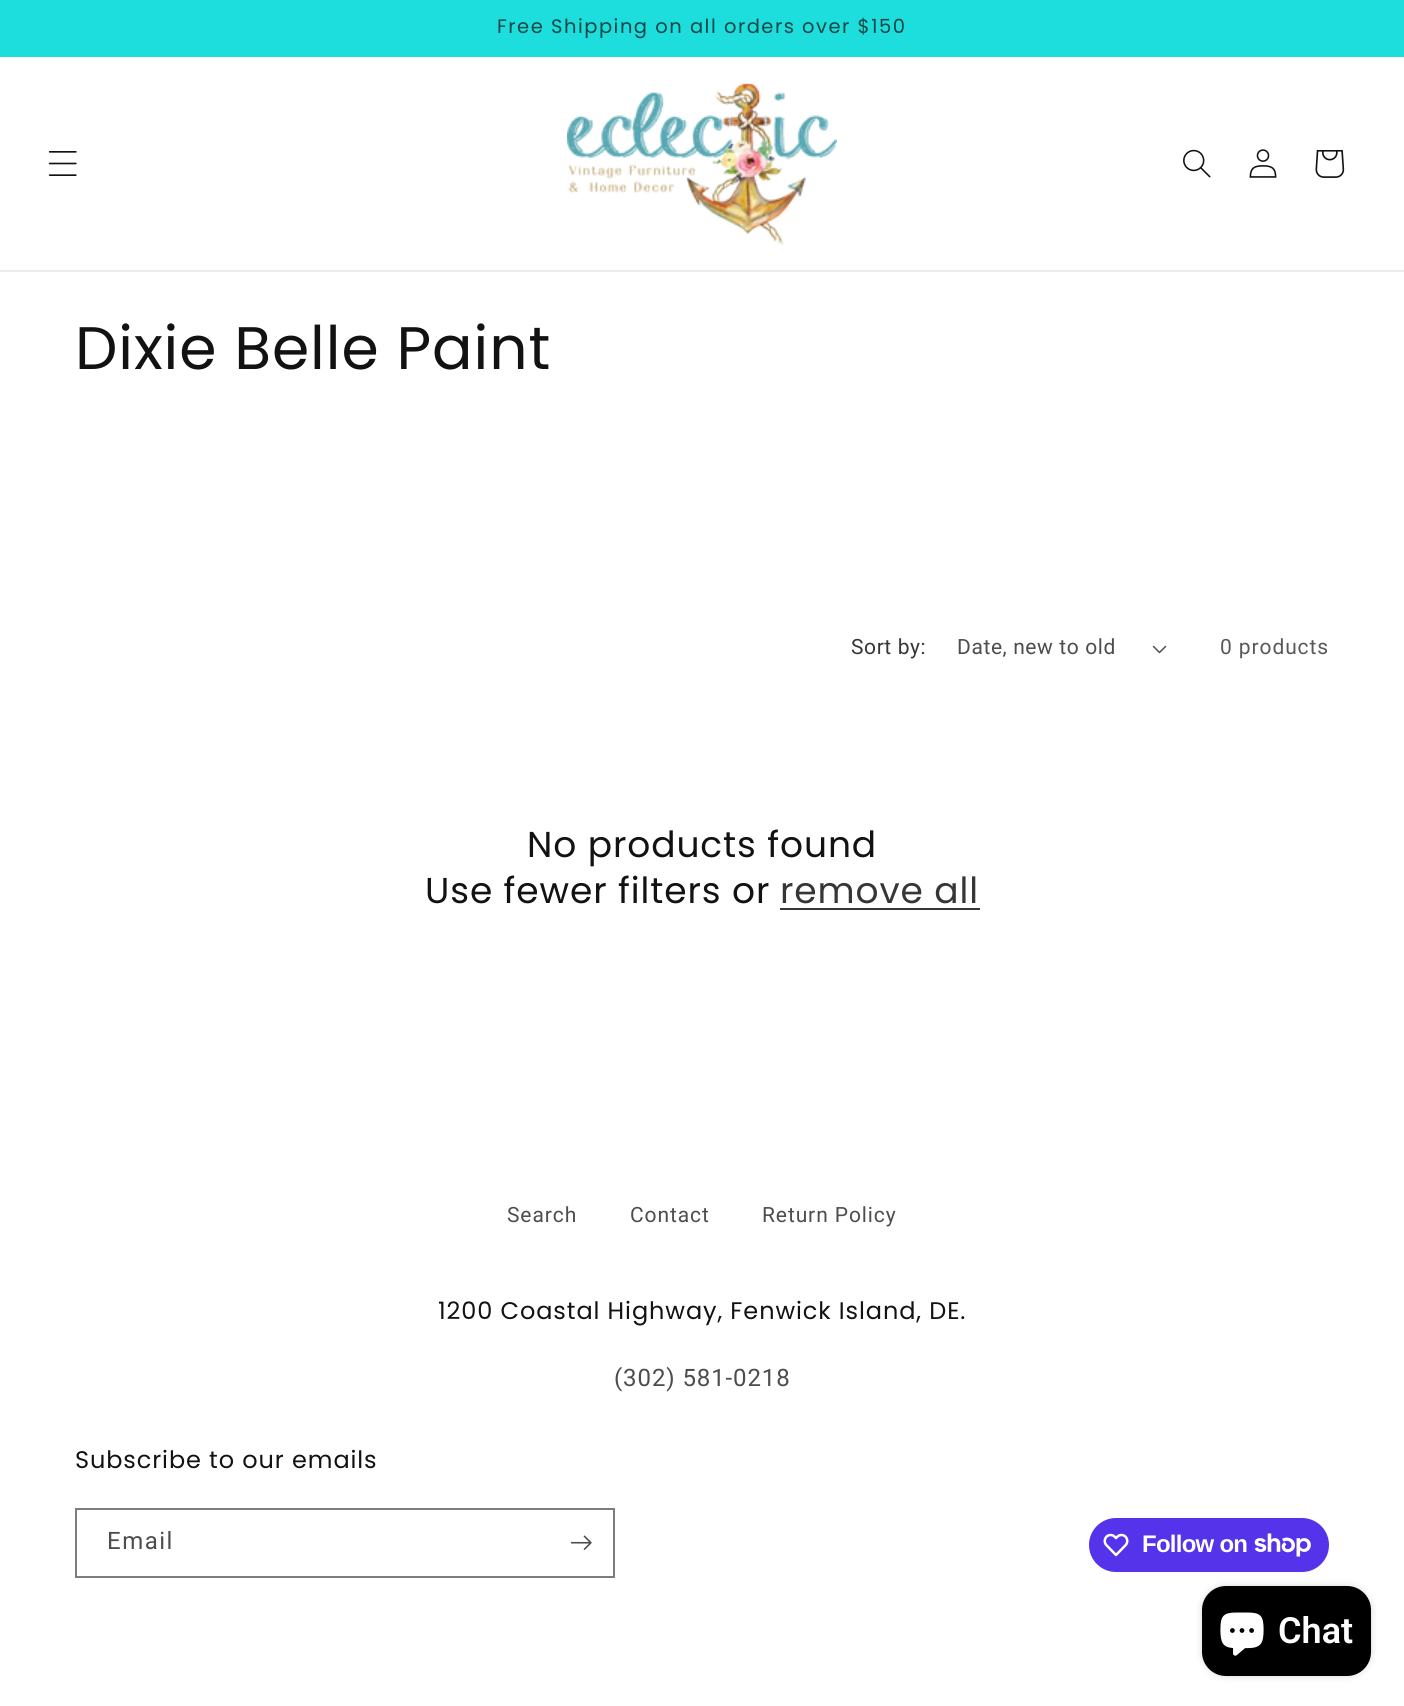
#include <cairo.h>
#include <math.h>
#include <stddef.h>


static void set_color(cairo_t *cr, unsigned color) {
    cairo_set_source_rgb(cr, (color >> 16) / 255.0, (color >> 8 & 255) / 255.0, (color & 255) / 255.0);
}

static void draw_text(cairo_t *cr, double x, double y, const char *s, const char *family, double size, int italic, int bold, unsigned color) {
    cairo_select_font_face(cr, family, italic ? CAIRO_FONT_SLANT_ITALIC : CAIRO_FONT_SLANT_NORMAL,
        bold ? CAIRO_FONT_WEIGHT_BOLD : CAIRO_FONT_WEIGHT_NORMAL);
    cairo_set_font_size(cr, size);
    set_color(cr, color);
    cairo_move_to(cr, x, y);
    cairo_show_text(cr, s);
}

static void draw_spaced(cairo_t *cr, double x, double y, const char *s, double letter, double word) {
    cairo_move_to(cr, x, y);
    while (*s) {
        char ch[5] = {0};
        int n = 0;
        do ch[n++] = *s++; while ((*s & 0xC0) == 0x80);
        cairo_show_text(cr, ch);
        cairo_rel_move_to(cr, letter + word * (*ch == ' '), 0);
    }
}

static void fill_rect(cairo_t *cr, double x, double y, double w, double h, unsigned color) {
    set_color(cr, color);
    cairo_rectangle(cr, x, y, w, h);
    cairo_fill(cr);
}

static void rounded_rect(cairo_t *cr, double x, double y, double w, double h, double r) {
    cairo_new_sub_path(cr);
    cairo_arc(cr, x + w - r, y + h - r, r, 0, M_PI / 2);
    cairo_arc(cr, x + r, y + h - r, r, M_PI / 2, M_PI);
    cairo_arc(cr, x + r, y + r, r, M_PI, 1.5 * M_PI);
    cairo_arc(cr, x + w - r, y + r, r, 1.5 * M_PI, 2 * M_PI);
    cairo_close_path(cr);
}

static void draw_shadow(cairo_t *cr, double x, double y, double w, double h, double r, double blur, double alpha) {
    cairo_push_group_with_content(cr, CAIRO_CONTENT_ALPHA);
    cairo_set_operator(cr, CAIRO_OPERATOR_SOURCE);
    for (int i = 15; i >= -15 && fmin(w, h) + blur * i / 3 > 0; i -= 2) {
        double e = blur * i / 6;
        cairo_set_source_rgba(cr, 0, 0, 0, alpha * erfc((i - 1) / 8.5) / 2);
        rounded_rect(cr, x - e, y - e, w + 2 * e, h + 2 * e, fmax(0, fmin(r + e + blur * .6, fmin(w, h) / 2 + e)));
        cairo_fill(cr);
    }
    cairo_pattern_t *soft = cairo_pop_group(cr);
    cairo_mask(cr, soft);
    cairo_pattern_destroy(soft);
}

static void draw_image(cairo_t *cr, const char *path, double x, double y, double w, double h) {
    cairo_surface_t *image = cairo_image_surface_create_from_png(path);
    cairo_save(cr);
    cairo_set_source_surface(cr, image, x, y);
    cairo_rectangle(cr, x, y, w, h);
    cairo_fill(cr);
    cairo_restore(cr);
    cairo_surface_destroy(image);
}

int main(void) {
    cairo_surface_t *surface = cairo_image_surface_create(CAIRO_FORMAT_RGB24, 1404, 1706);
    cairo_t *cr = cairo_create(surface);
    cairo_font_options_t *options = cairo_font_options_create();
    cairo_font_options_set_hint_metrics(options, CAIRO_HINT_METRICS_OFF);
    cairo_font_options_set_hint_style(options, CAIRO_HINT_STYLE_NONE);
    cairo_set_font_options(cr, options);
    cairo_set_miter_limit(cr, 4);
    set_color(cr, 0xFFFFFF);
    cairo_paint(cr);
    fill_rect(cr, 0, 0, 1404, 57, 0x1DDDDD);
    cairo_select_font_face(cr, "Poppins", CAIRO_FONT_SLANT_NORMAL, CAIRO_FONT_WEIGHT_NORMAL);
    cairo_set_font_size(cr, 19.5);
    set_color(cr, 0x154545);
    draw_spaced(cr, 497, 33, "Free Shipping on all orders over $150", 1.5, 0);
    fill_rect(cr, 0, 270, 1404, 2, 0xECECEC);
    draw_image(cr, "assets/img1.png", 48, 151, 29, 25);
    draw_image(cr, "assets/img2.png", 567, 83, 270, 162);
    draw_image(cr, "assets/img3.png", 1183, 149, 28, 29);
    draw_image(cr, "assets/img4.png", 1249, 149, 28, 29);
    draw_image(cr, "assets/img5.png", 1315, 150, 30, 28);
    cairo_set_font_size(cr, 60);
    set_color(cr, 0x121212);
    draw_spaced(cr, 75, 369, "Dixie Belle Paint", 0.9, 0);
    cairo_select_font_face(cr, "Roboto", CAIRO_FONT_SLANT_NORMAL, CAIRO_FONT_WEIGHT_NORMAL);
    cairo_set_font_size(cr, 21);
    set_color(cr, 0x363636);
    draw_spaced(cr, 851, 654, "Sort by:", 0.6, 0);
    set_color(cr, 0x4D4D4D);
    draw_spaced(cr, 957, 654, "Date, new to old", 0.6, 0);
    draw_image(cr, "assets/img6.png", 1152, 645, 15, 9);
    set_color(cr, 0x595959);
    draw_spaced(cr, 1220, 654, "0 products", 0.9, 0);
    cairo_select_font_face(cr, "Poppins", CAIRO_FONT_SLANT_NORMAL, CAIRO_FONT_WEIGHT_NORMAL);
    cairo_set_font_size(cr, 36);
    set_color(cr, 0x121212);
    draw_spaced(cr, 527, 857, "No products found", 0.9, 0);
    draw_spaced(cr, 425, 903, "Use fewer filters or", 0.9, 0);
    set_color(cr, 0x363636);
    draw_spaced(cr, 780, 903, "remove all", 0.9, 0);
    fill_rect(cr, 780, 908, 200, 2, 0x363636);
    cairo_select_font_face(cr, "Roboto", CAIRO_FONT_SLANT_NORMAL, CAIRO_FONT_WEIGHT_NORMAL);
    cairo_set_font_size(cr, 21);
    set_color(cr, 0x4D4D4D);
    draw_spaced(cr, 507, 1222, "Search", 0.9, 0);
    draw_spaced(cr, 630, 1222, "Contact", 0.9, 0);
    draw_spaced(cr, 762, 1222, "Return Policy", 0.9, 0);
    cairo_select_font_face(cr, "Poppins", CAIRO_FONT_SLANT_NORMAL, CAIRO_FONT_WEIGHT_NORMAL);
    cairo_set_font_size(cr, 24);
    set_color(cr, 0x121212);
    draw_spaced(cr, 438, 1319, "1200 Coastal Highway, Fenwick Island, DE.", 0.9, 0);
    cairo_select_font_face(cr, "Roboto", CAIRO_FONT_SLANT_NORMAL, CAIRO_FONT_WEIGHT_NORMAL);
    set_color(cr, 0x4D4D4D);
    draw_spaced(cr, 614, 1386, "(302) 581-0218", 0.9, 0);
    cairo_select_font_face(cr, "Poppins", CAIRO_FONT_SLANT_NORMAL, CAIRO_FONT_WEIGHT_NORMAL);
    set_color(cr, 0x121212);
    draw_spaced(cr, 75, 1468, "Subscribe to our emails", 0.9, 0);
    cairo_rectangle(cr, 76, 1509, 538, 68);
    set_color(cr, 0x7D7D7D);
    cairo_stroke(cr);
    cairo_select_font_face(cr, "Roboto", CAIRO_FONT_SLANT_NORMAL, CAIRO_FONT_WEIGHT_NORMAL);
    set_color(cr, 0x4D4D4D);
    draw_spaced(cr, 107, 1549, "Email", 1.5, 0);
    draw_image(cr, "assets/img7.png", 570, 1535, 22, 15);
    set_color(cr, 0x5433EB);
    rounded_rect(cr, 1089, 1518, 240, 54, 27);
    cairo_fill(cr);
    draw_image(cr, "assets/img8.png", 1103, 1533, 26, 24);
    cairo_select_font_face(cr, "Liberation Sans", CAIRO_FONT_SLANT_NORMAL, CAIRO_FONT_WEIGHT_BOLD);
    set_color(cr, 0xFFFFFF);
    draw_spaced(cr, 1142, 1552, "Follow on", -0.75, 0);
    draw_image(cr, "assets/img9.png", 1254, 1533, 57, 24);
    set_color(cr, 0x000000);
    draw_shadow(cr, 1202, 1586, 169, 90, 24, 4, 0.15);
    set_color(cr, 0x000000);
    rounded_rect(cr, 1202, 1586, 169, 90, 24);
    cairo_fill(cr);
    draw_image(cr, "assets/img10.png", 1220, 1612, 44, 44);
    draw_text(cr, 1278, 1643, "Chat", "Roboto SemiBold", 36, 0, 0, 0xFFFFFF);
    cairo_surface_write_to_png(surface, "output.png");
    cairo_font_options_destroy(options);
    cairo_destroy(cr);
    cairo_surface_destroy(surface);
    return 0;
}
